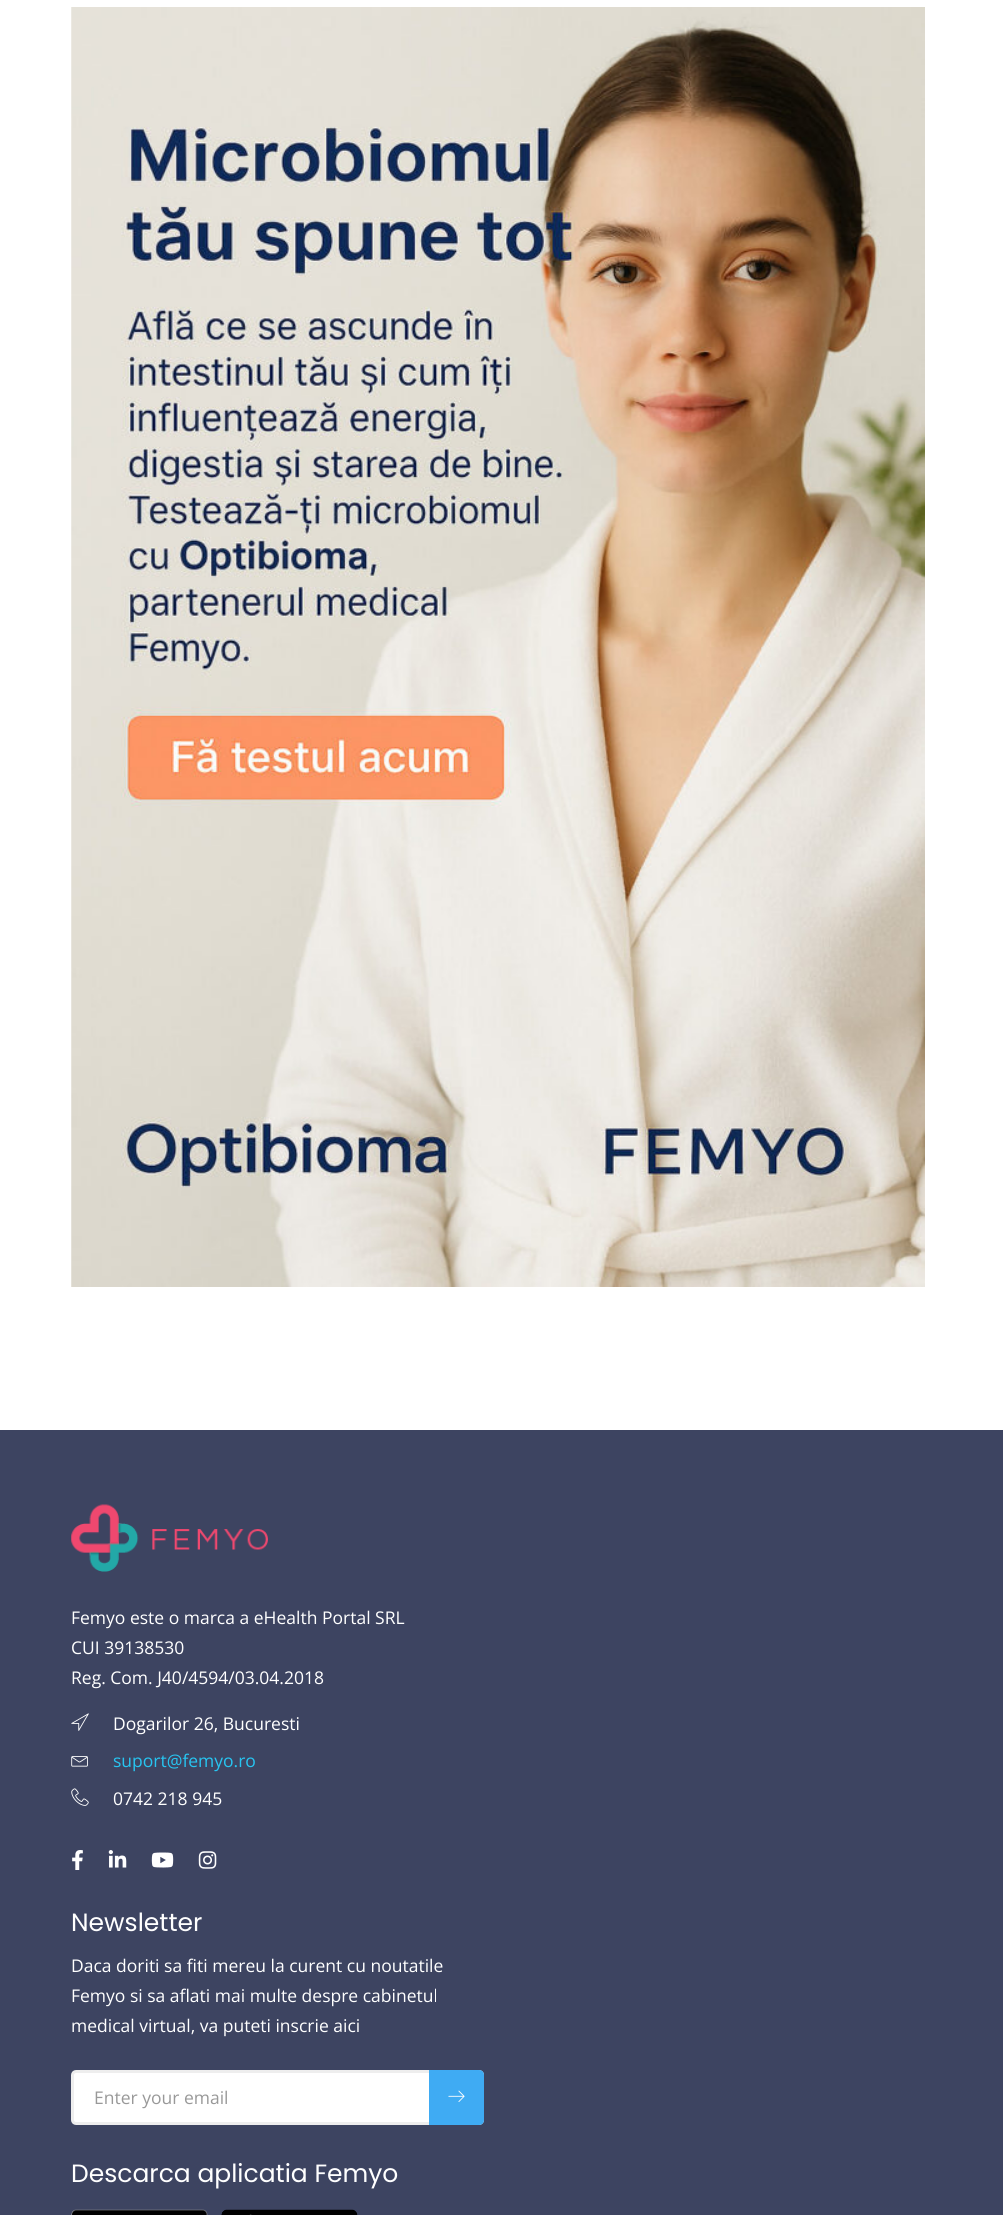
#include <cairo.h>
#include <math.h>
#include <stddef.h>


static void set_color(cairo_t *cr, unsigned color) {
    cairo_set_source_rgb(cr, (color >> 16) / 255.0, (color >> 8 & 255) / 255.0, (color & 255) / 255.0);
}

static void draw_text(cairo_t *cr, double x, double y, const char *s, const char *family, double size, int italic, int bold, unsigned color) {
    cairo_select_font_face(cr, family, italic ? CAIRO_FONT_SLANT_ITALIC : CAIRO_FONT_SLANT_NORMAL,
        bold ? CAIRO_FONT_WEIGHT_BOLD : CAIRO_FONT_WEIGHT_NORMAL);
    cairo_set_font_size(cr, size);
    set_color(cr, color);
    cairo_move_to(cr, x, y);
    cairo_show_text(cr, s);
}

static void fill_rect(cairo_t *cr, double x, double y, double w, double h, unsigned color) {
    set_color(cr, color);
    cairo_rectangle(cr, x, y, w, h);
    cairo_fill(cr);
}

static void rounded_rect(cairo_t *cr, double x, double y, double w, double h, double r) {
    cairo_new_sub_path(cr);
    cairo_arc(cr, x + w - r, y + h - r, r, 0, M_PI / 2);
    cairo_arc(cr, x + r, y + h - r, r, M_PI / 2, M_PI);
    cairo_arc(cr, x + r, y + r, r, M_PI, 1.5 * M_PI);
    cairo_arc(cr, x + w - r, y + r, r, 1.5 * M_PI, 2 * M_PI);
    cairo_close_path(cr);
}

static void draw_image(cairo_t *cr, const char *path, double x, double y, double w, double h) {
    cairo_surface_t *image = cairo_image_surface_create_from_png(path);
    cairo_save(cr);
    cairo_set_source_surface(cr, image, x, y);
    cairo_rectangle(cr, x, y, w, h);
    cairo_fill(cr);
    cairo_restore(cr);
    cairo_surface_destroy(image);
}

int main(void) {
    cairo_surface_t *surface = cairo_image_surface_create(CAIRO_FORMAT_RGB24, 1003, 2215);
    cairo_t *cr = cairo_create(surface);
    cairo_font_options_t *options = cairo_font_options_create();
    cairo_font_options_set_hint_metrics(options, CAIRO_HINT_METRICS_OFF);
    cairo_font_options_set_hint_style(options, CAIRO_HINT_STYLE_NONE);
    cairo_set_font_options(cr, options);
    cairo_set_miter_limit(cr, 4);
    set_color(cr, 0xFFFFFF);
    cairo_paint(cr);
    draw_image(cr, "assets/img1.png", 71, 7, 854, 1280);
    fill_rect(cr, 0, 1430, 1003, 785, 0x3D4461);
    draw_image(cr, "assets/img2.png", 71, 1504, 197, 68);
    draw_text(cr, 71, 1624, "Femyo este o marca a eHealth Portal SRL", "Open Sans", 17.5, 0, 0, 0xFFFFFF);
    draw_text(cr, 71, 1654, "CUI 39138530", "Open Sans", 17.5, 0, 0, 0xFFFFFF);
    draw_text(cr, 71, 1684, "Reg. Com. J40/4594/03.04.2018", "Open Sans", 17.5, 0, 0, 0xFFFFFF);
    draw_image(cr, "assets/img3.png", 71, 1713, 18, 18);
    draw_text(cr, 113, 1730, "Dogarilor 26, Bucuresti", "Open Sans", 17.5, 0, 0, 0xFFFFFF);
    draw_image(cr, "assets/img4.png", 71, 1756, 17, 11);
    draw_text(cr, 113, 1767, "suport@femyo.ro", "Open Sans", 17.5, 0, 0, 0x27C5F1);
    draw_image(cr, "assets/img5.png", 71, 1788, 18, 18);
    draw_text(cr, 113, 1805, "0742 218 945", "Open Sans", 17.5, 0, 0, 0xFFFFFF);
    draw_image(cr, "assets/img6.png", 72, 1850, 11, 20);
    draw_image(cr, "assets/img7.png", 108, 1850, 19, 18);
    draw_image(cr, "assets/img8.png", 151, 1852, 23, 16);
    draw_image(cr, "assets/img9.png", 198, 1851, 19, 18);
    draw_text(cr, 71, 1931, "Newsletter", "Poppins", 25, 0, 0, 0xFFFFFF);
    draw_text(cr, 71, 1972, "Daca doriti sa fiti mereu la curent cu noutatile", "Open Sans", 17.5, 0, 0, 0xFFFFFF);
    draw_text(cr, 71, 2002, "Femyo si sa aflati mai multe despre cabinetul", "Open Sans", 17.5, 0, 0, 0xFFFFFF);
    draw_text(cr, 71, 2032, "medical virtual, va puteti inscrie aici", "Open Sans", 17.5, 0, 0, 0xFFFFFF);
    rounded_rect(cr, 72.5, 2071.5, 410, 52, 3.5);
    cairo_fill_preserve(cr);
    set_color(cr, 0xEEEEEE);
    cairo_set_line_width(cr, 3);
    cairo_stroke(cr);
    draw_text(cr, 94, 2104, "Enter your email", "Open Sans", 17.5, 0, 0, 0x999999);
    set_color(cr, 0x3FABF3);
    cairo_new_path(cr);
    cairo_move_to(cr, 429, 2070);
    cairo_line_to(cr, 479, 2070);
    cairo_curve_to(cr, 482, 2070, 484, 2072, 484, 2075);
    cairo_line_to(cr, 484, 2120);
    cairo_curve_to(cr, 484, 2123, 482, 2125, 479, 2125);
    cairo_line_to(cr, 429, 2125);
    cairo_close_path(cr);
    cairo_fill(cr);
    draw_image(cr, "assets/img10.png", 448, 2090, 17, 12);
    draw_text(cr, 71, 2182, "Descarca aplicatia Femyo", "Poppins", 25, 0, 0, 0xFFFFFF);
    draw_image(cr, "assets/img11.png", 71, 2209, 137, 6);
    draw_image(cr, "assets/img12.png", 221, 2209, 137, 6);
    cairo_surface_write_to_png(surface, "output.png");
    cairo_font_options_destroy(options);
    cairo_destroy(cr);
    cairo_surface_destroy(surface);
    return 0;
}
